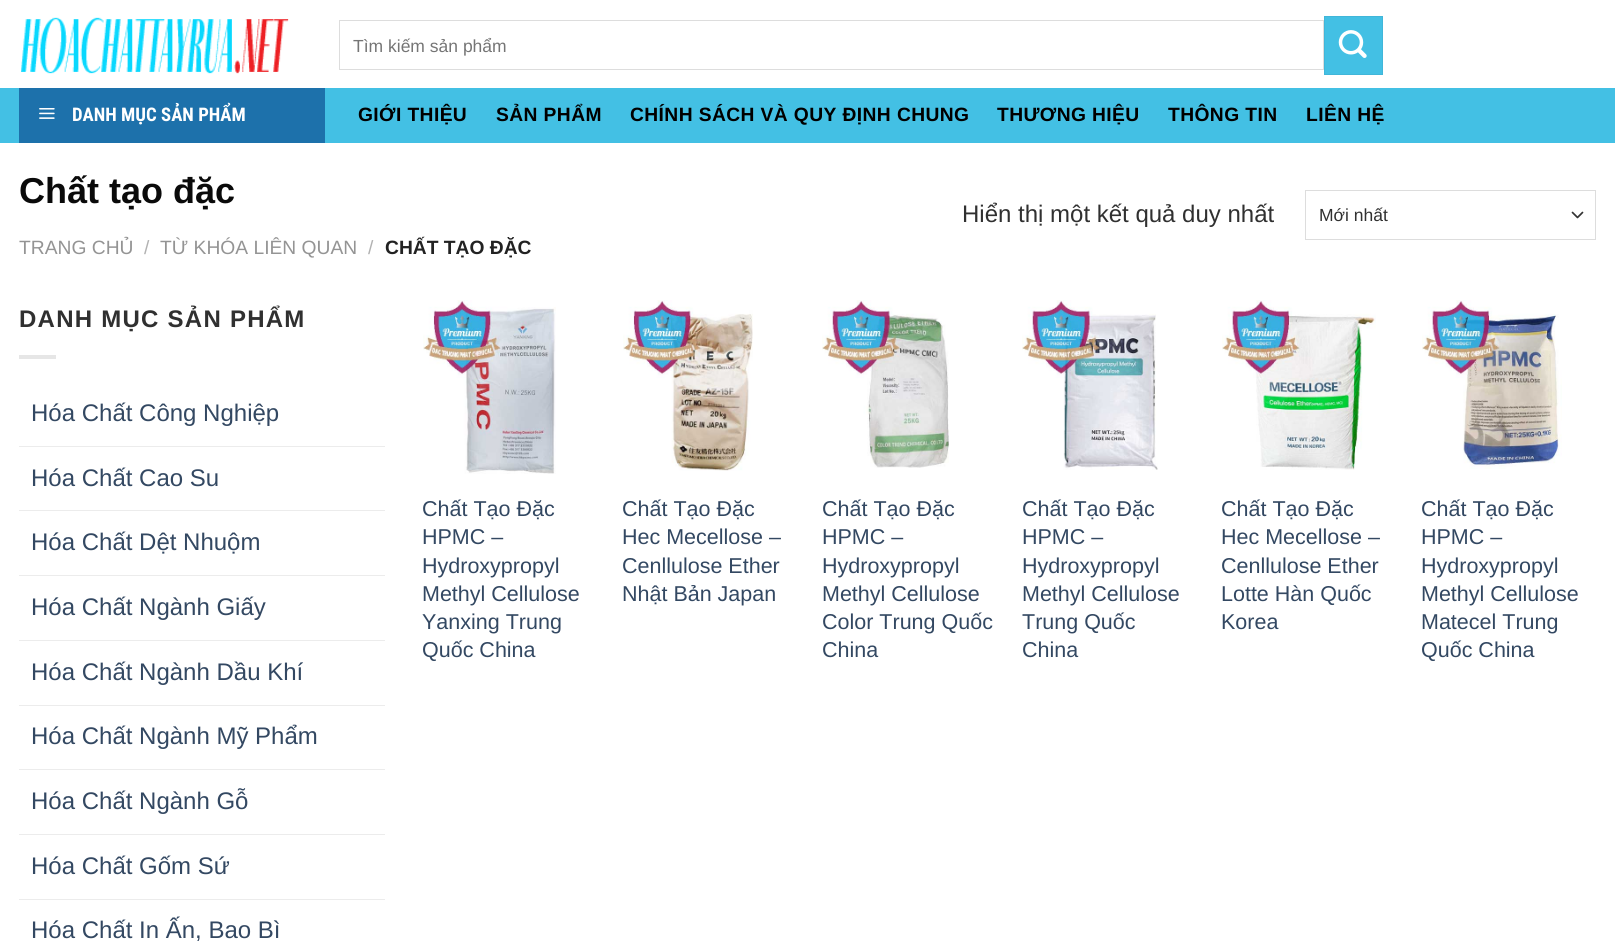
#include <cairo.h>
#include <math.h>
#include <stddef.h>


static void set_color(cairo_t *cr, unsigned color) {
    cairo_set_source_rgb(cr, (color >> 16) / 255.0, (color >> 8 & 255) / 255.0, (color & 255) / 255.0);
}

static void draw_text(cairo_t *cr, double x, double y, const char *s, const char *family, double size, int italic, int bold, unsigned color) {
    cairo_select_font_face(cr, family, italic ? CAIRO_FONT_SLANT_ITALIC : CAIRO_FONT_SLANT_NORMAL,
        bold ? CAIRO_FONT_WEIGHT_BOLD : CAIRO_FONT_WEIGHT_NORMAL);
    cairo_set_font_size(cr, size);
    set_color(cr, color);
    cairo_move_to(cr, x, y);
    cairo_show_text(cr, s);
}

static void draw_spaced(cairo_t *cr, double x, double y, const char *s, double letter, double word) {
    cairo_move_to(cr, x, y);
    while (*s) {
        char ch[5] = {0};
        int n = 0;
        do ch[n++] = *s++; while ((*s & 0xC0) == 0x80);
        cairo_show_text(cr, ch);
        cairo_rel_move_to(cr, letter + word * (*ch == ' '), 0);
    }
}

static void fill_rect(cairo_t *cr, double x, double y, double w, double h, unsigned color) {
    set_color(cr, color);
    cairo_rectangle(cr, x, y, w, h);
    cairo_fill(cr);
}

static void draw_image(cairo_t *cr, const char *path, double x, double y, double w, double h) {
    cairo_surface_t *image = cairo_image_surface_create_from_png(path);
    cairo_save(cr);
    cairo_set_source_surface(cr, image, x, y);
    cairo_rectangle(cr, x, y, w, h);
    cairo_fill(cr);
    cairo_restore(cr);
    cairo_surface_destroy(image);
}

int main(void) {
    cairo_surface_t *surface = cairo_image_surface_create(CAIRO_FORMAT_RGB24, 1615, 941);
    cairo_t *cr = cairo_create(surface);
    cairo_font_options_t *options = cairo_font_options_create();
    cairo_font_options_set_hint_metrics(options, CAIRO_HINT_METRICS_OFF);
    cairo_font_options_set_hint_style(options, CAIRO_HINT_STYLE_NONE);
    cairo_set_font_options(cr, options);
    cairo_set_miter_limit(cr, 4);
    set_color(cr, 0xFFFFFF);
    cairo_paint(cr);
    draw_image(cr, "assets/img1.png", 21, 17, 268, 57);
    cairo_rectangle(cr, 339.5, 20.5, 984, 49);
    set_color(cr, 0xDDDDDD);
    cairo_set_line_width(cr, 1);
    cairo_stroke(cr);
    draw_text(cr, 353, 52, "Tìm kiếm sản phẩm", "Liberation Sans", 17.5, 0, 0, 0x757575);
    set_color(cr, 0x43C0E4);
    cairo_rectangle(cr, 1324.5, 16.5, 58, 58);
    cairo_fill_preserve(cr);
    set_color(cr, 0x40B6D9);
    cairo_stroke(cr);
    draw_image(cr, "assets/img2.png", 1338, 30, 29, 28);
    fill_rect(cr, 0, 88, 1615, 55, 0x43C0E4);
    fill_rect(cr, 19, 88, 306, 55, 0x1D71AB);
    draw_image(cr, "assets/img3.png", 39, 108, 16, 11);
    draw_text(cr, 72, 121, "DANH MỤC SẢN PHẨM", "Roboto Condensed", 18.75, 0, 1, 0xFFFFFF);
    cairo_select_font_face(cr, "Liberation Sans", CAIRO_FONT_SLANT_NORMAL, CAIRO_FONT_WEIGHT_BOLD);
    cairo_set_font_size(cr, 19.25);
    set_color(cr, 0x000000);
    draw_spaced(cr, 358, 121, "GIỚI THIỆU", 0.4, 0);
    draw_spaced(cr, 496, 121, "SẢN PHẨM", 0.4, 0);
    draw_spaced(cr, 630, 121, "CHÍNH SÁCH VÀ QUY ĐỊNH CHUNG", 0.4, 0);
    draw_spaced(cr, 997, 121, "THƯƠNG HIỆU", 0.4, 0);
    draw_spaced(cr, 1168, 121, "THÔNG TIN", 0.4, 0);
    draw_spaced(cr, 1306, 121, "LIÊN HỆ", 0.4, 0);
    draw_text(cr, 19, 203, "Chất tạo đặc", "Liberation Sans", 36, 0, 1, 0x0A0A0A);
    draw_text(cr, 19, 254, "TRANG CHỦ", "Liberation Sans", 19.25, 0, 0, 0x949494);
    draw_text(cr, 144, 254, "/", "Liberation Sans", 19.25, 0, 0, 0xB2B2B2);
    draw_text(cr, 160, 254, "TỪ KHÓA LIÊN QUAN", "Liberation Sans", 19.25, 0, 0, 0x949494);
    draw_text(cr, 368, 254, "/", "Liberation Sans", 19.25, 0, 0, 0xB2B2B2);
    draw_text(cr, 385, 254, "CHẤT TẠO ĐẶC", "Liberation Sans", 19.25, 0, 1, 0x222222);
    draw_text(cr, 962, 222, "Hiển thị một kết quả duy nhất", "Liberation Sans", 24, 0, 0, 0x303030);
    cairo_new_path(cr);
    cairo_move_to(cr, 1572.5, 212.5);
    cairo_line_to(cr, 1577.5, 217.5);
    cairo_line_to(cr, 1582.5, 212.5);
    set_color(cr, 0x333333);
    cairo_set_line_width(cr, 1.7);
    cairo_set_line_cap(cr, CAIRO_LINE_CAP_ROUND);
    cairo_set_line_join(cr, CAIRO_LINE_JOIN_ROUND);
    cairo_stroke(cr);
    cairo_rectangle(cr, 1305.5, 190.5, 290, 49);
    set_color(cr, 0xDDDDDD);
    cairo_set_line_width(cr, 1);
    cairo_set_line_cap(cr, CAIRO_LINE_CAP_BUTT);
    cairo_set_line_join(cr, CAIRO_LINE_JOIN_MITER);
    cairo_stroke(cr);
    draw_text(cr, 1319, 221, "Mới nhất", "Liberation Sans", 17.5, 0, 0, 0x303030);
    cairo_select_font_face(cr, "Liberation Sans", CAIRO_FONT_SLANT_NORMAL, CAIRO_FONT_WEIGHT_BOLD);
    cairo_set_font_size(cr, 24);
    draw_spaced(cr, 19, 327, "DANH MỤC SẢN PHẨM", 1.25, 0);
    fill_rect(cr, 19, 355, 37, 4, 0xE6E6E6);
    draw_text(cr, 31, 421, "Hóa Chất Công Nghiệp", "Liberation Sans", 24, 0, 0, 0x334862);
    fill_rect(cr, 19, 446, 366, 1, 0xECECEC);
    draw_text(cr, 31, 486, "Hóa Chất Cao Su", "Liberation Sans", 24, 0, 0, 0x334862);
    fill_rect(cr, 19, 510, 366, 1, 0xECECEC);
    draw_text(cr, 31, 550, "Hóa Chất Dệt Nhuộm", "Liberation Sans", 24, 0, 0, 0x334862);
    fill_rect(cr, 19, 575, 366, 1, 0xECECEC);
    draw_text(cr, 31, 615, "Hóa Chất Ngành Giấy", "Liberation Sans", 24, 0, 0, 0x334862);
    fill_rect(cr, 19, 640, 366, 1, 0xECECEC);
    draw_text(cr, 31, 680, "Hóa Chất Ngành Dầu Khí", "Liberation Sans", 24, 0, 0, 0x334862);
    fill_rect(cr, 19, 705, 366, 1, 0xECECEC);
    draw_text(cr, 31, 744, "Hóa Chất Ngành Mỹ Phẩm", "Liberation Sans", 24, 0, 0, 0x334862);
    fill_rect(cr, 19, 769, 366, 1, 0xECECEC);
    draw_text(cr, 31, 809, "Hóa Chất Ngành Gỗ", "Liberation Sans", 24, 0, 0, 0x334862);
    fill_rect(cr, 19, 834, 366, 1, 0xECECEC);
    draw_text(cr, 31, 874, "Hóa Chất Gốm Sứ", "Liberation Sans", 24, 0, 0, 0x334862);
    fill_rect(cr, 19, 899, 366, 1, 0xECECEC);
    draw_text(cr, 31, 938, "Hóa Chất In Ấn, Bao Bì", "Liberation Sans", 24, 0, 0, 0x334862);
    draw_image(cr, "assets/img4.png", 423, 300, 133, 174);
    draw_text(cr, 422, 516, "Chất Tạo Đặc", "Liberation Sans", 21.5, 0, 0, 0x334862);
    draw_text(cr, 422, 544, "HPMC –", "Liberation Sans", 21.5, 0, 0, 0x334862);
    draw_text(cr, 422, 573, "Hydroxypropyl", "Liberation Sans", 21.5, 0, 0, 0x334862);
    draw_text(cr, 422, 601, "Methyl Cellulose", "Liberation Sans", 21.5, 0, 0, 0x334862);
    draw_text(cr, 422, 629, "Yanxing Trung", "Liberation Sans", 21.5, 0, 0, 0x334862);
    draw_text(cr, 422, 657, "Quốc China", "Liberation Sans", 21.5, 0, 0, 0x334862);
    draw_image(cr, "assets/img5.png", 623, 300, 130, 171);
    draw_text(cr, 622, 516, "Chất Tạo Đặc", "Liberation Sans", 21.5, 0, 0, 0x334862);
    draw_text(cr, 622, 544, "Hec Mecellose –", "Liberation Sans", 21.5, 0, 0, 0x334862);
    draw_text(cr, 622, 573, "Cenllulose Ether", "Liberation Sans", 21.5, 0, 0, 0x334862);
    draw_text(cr, 622, 601, "Nhật Bản Japan", "Liberation Sans", 21.5, 0, 0, 0x334862);
    draw_image(cr, "assets/img6.png", 822, 300, 127, 168);
    draw_text(cr, 822, 516, "Chất Tạo Đặc", "Liberation Sans", 21.5, 0, 0, 0x334862);
    draw_text(cr, 822, 544, "HPMC –", "Liberation Sans", 21.5, 0, 0, 0x334862);
    draw_text(cr, 822, 573, "Hydroxypropyl", "Liberation Sans", 21.5, 0, 0, 0x334862);
    draw_text(cr, 822, 601, "Methyl Cellulose", "Liberation Sans", 21.5, 0, 0, 0x334862);
    draw_text(cr, 822, 629, "Color Trung Quốc", "Liberation Sans", 21.5, 0, 0, 0x334862);
    draw_text(cr, 822, 657, "China", "Liberation Sans", 21.5, 0, 0, 0x334862);
    draw_image(cr, "assets/img7.png", 1022, 300, 136, 170);
    draw_text(cr, 1022, 516, "Chất Tạo Đặc", "Liberation Sans", 21.5, 0, 0, 0x334862);
    draw_text(cr, 1022, 544, "HPMC –", "Liberation Sans", 21.5, 0, 0, 0x334862);
    draw_text(cr, 1022, 573, "Hydroxypropyl", "Liberation Sans", 21.5, 0, 0, 0x334862);
    draw_text(cr, 1022, 601, "Methyl Cellulose", "Liberation Sans", 21.5, 0, 0, 0x334862);
    draw_text(cr, 1022, 629, "Trung Quốc", "Liberation Sans", 21.5, 0, 0, 0x334862);
    draw_text(cr, 1022, 657, "China", "Liberation Sans", 21.5, 0, 0, 0x334862);
    draw_image(cr, "assets/img8.png", 1222, 300, 154, 170);
    draw_text(cr, 1221, 516, "Chất Tạo Đặc", "Liberation Sans", 21.5, 0, 0, 0x334862);
    draw_text(cr, 1221, 544, "Hec Mecellose –", "Liberation Sans", 21.5, 0, 0, 0x334862);
    draw_text(cr, 1221, 573, "Cenllulose Ether", "Liberation Sans", 21.5, 0, 0, 0x334862);
    draw_text(cr, 1221, 601, "Lotte Hàn Quốc", "Liberation Sans", 21.5, 0, 0, 0x334862);
    draw_text(cr, 1221, 629, "Korea", "Liberation Sans", 21.5, 0, 0, 0x334862);
    draw_image(cr, "assets/img9.png", 1422, 300, 140, 169);
    draw_text(cr, 1421, 516, "Chất Tạo Đặc", "Liberation Sans", 21.5, 0, 0, 0x334862);
    draw_text(cr, 1421, 544, "HPMC –", "Liberation Sans", 21.5, 0, 0, 0x334862);
    draw_text(cr, 1421, 573, "Hydroxypropyl", "Liberation Sans", 21.5, 0, 0, 0x334862);
    draw_text(cr, 1421, 601, "Methyl Cellulose", "Liberation Sans", 21.5, 0, 0, 0x334862);
    draw_text(cr, 1421, 629, "Matecel Trung", "Liberation Sans", 21.5, 0, 0, 0x334862);
    draw_text(cr, 1421, 657, "Quốc China", "Liberation Sans", 21.5, 0, 0, 0x334862);
    cairo_surface_write_to_png(surface, "output.png");
    cairo_font_options_destroy(options);
    cairo_destroy(cr);
    cairo_surface_destroy(surface);
    return 0;
}
